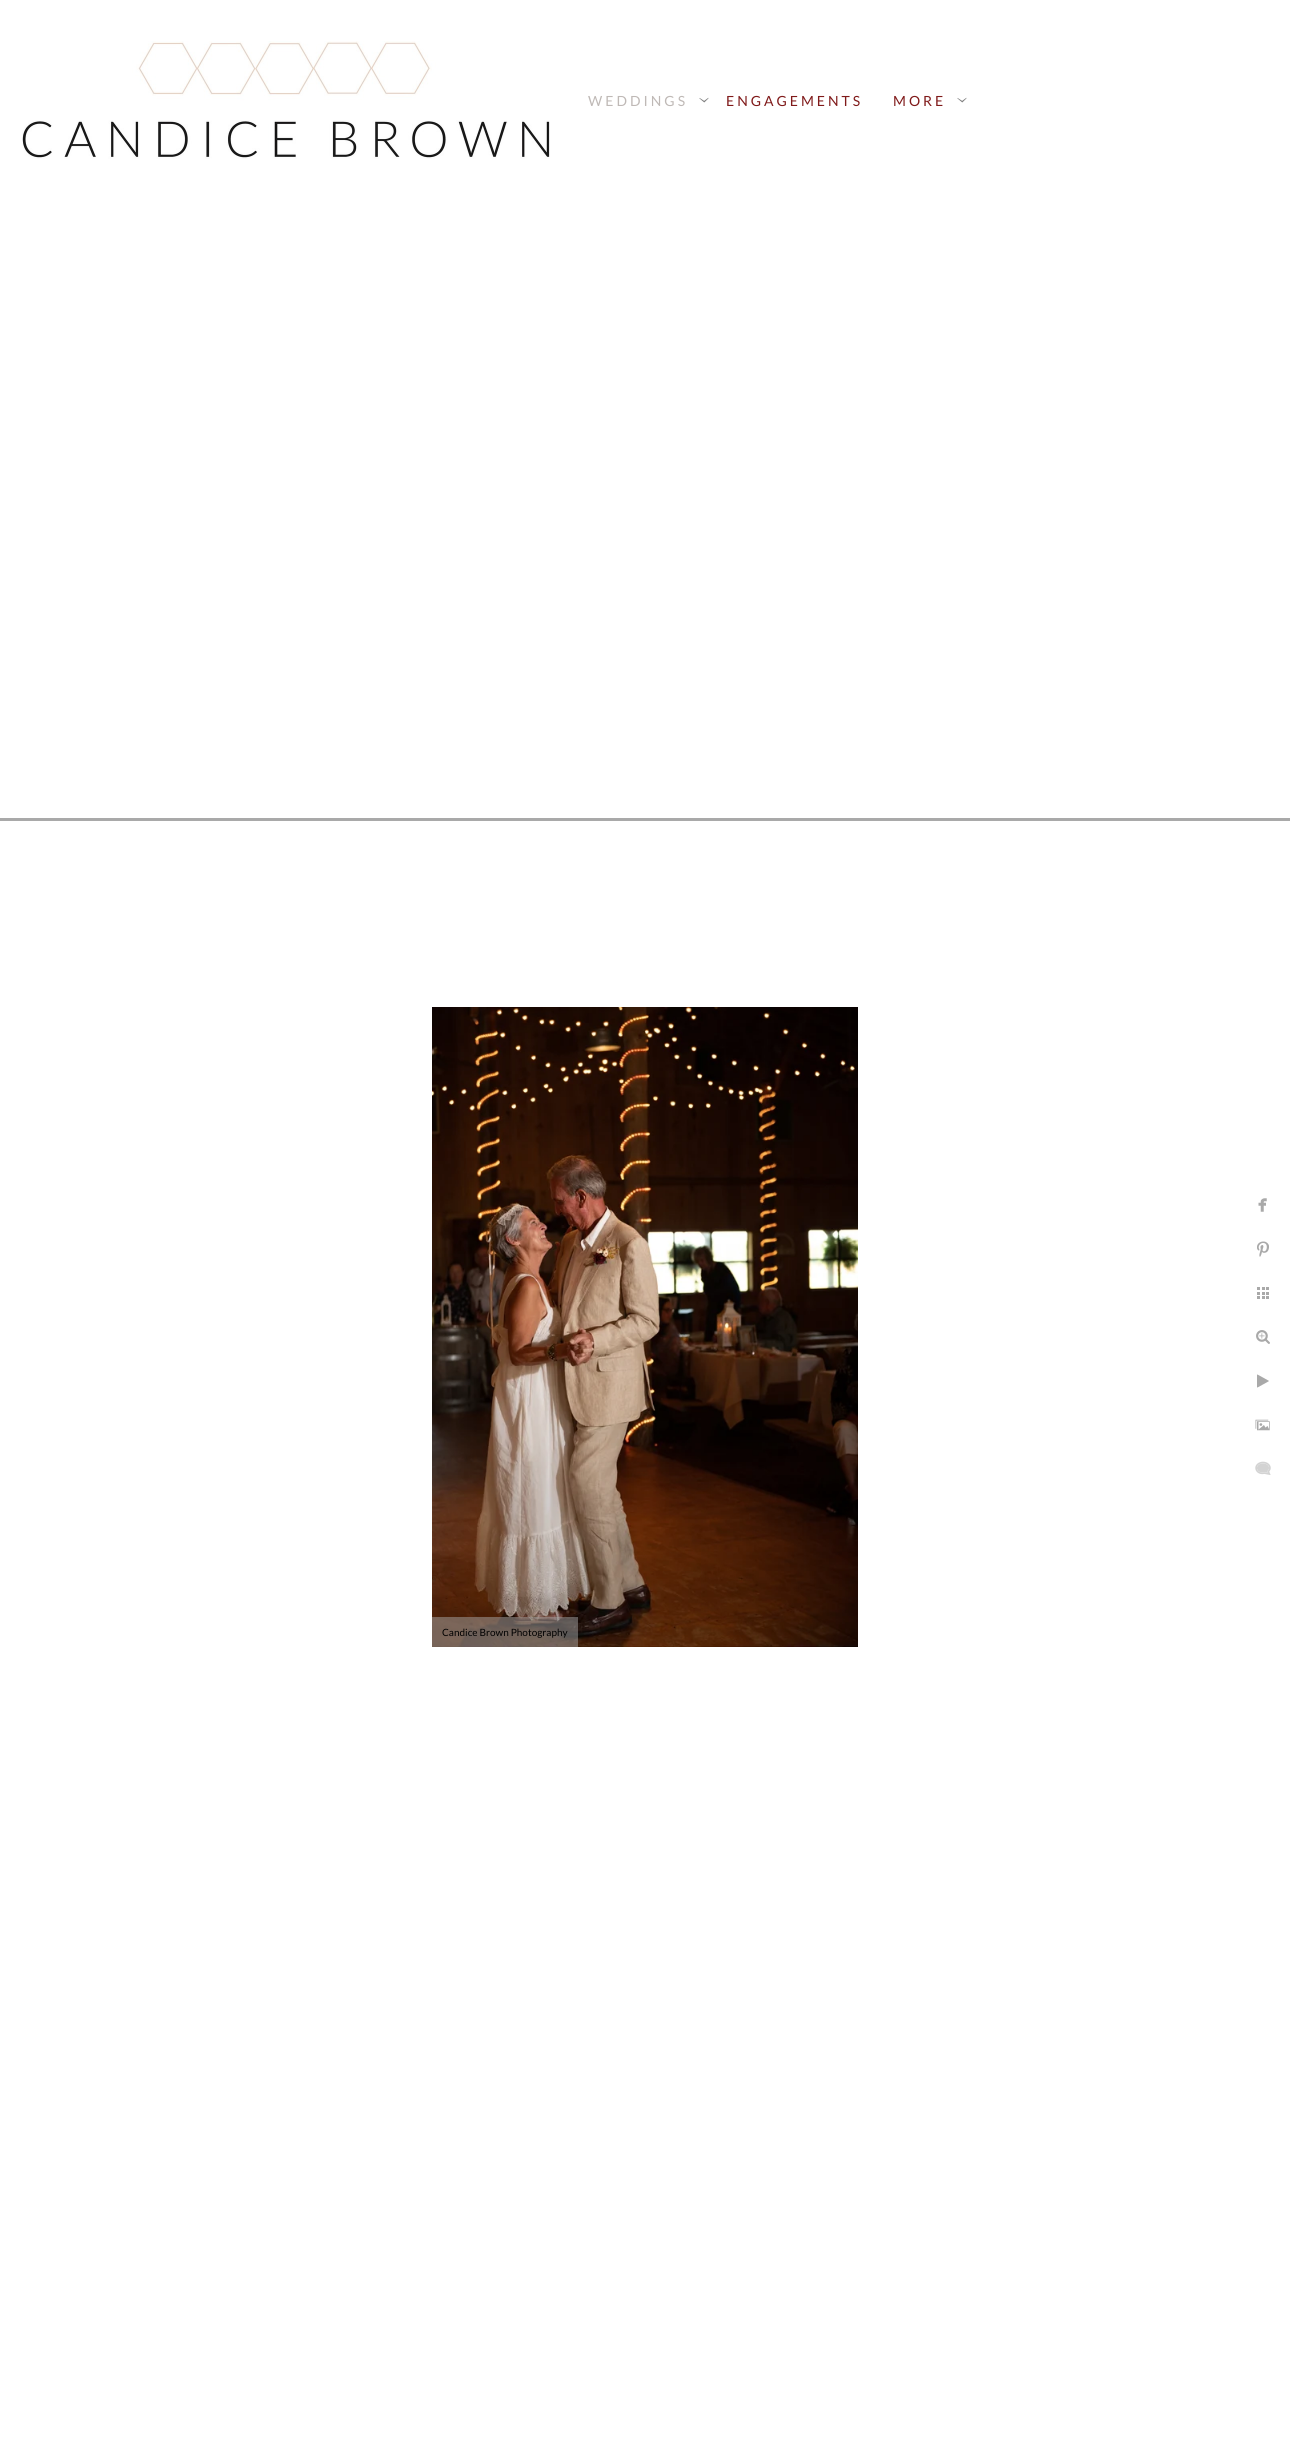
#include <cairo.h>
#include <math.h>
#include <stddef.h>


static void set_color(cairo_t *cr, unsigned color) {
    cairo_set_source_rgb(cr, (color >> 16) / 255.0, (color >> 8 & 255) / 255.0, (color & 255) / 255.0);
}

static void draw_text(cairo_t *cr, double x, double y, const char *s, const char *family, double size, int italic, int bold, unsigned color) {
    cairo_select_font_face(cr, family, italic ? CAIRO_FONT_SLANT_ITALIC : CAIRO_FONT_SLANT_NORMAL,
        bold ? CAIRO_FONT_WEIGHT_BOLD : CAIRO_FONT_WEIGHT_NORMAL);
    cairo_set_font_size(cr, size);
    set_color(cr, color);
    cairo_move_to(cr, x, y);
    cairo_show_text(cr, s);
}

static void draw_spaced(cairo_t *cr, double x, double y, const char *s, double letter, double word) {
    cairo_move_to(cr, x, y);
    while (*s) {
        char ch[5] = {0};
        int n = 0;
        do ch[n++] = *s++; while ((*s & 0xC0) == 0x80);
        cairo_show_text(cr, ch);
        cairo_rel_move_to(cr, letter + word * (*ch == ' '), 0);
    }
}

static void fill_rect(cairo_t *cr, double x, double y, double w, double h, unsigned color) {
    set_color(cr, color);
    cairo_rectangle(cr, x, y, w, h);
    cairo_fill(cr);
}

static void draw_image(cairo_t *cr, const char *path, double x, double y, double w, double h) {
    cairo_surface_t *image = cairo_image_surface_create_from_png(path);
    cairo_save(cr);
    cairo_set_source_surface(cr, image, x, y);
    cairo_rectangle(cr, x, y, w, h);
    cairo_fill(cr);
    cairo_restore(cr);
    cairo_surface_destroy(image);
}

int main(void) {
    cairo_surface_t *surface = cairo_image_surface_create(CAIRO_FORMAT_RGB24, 1290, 2454);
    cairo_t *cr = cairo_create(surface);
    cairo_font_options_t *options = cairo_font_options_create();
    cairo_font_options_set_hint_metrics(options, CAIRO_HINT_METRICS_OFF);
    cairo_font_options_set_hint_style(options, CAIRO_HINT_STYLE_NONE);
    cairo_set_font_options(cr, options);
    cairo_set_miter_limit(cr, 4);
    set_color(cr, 0xFFFFFF);
    cairo_paint(cr);
    draw_image(cr, "assets/img1.png", 22, 41, 528, 118);
    cairo_select_font_face(cr, "Lato", CAIRO_FONT_SLANT_NORMAL, CAIRO_FONT_WEIGHT_NORMAL);
    cairo_set_font_size(cr, 14);
    set_color(cr, 0xBFB9B6);
    draw_spaced(cr, 588, 106, "WEDDINGS", 3, 0);
    draw_image(cr, "assets/img2.png", 699, 97, 10, 6);
    set_color(cr, 0x801A1A);
    draw_spaced(cr, 726, 106, "ENGAGEMENTS", 3, 0);
    draw_spaced(cr, 893, 106, "MORE", 3, 0);
    draw_image(cr, "assets/img2.png", 957, 97, 10, 6);
    fill_rect(cr, 0, 818, 1290, 3, 0xA9A9A9);
    draw_image(cr, "assets/img3.png", 1258, 1198, 9, 14);
    draw_image(cr, "assets/img4.png", 1257, 1241, 12, 16);
    draw_image(cr, "assets/img5.png", 1257, 1287, 12, 12);
    draw_image(cr, "assets/img6.png", 1256, 1330, 14, 14);
    draw_image(cr, "assets/img7.png", 1257, 1374, 12, 14);
    draw_image(cr, "assets/img8.png", 1255, 1419, 15, 12);
    draw_image(cr, "assets/img9.png", 1255, 1461, 16, 14);
    draw_image(cr, "assets/img10.png", 432, 1007, 426, 640);
    cairo_set_source_rgba(cr, 0.663, 0.663, 0.663, 0.5);
    cairo_rectangle(cr, 432, 1617, 146, 30);
    cairo_fill(cr);
    draw_text(cr, 442, 1636, "Candice Brown Photography", "Lato", 10, 0, 0, 0x000000);
    cairo_surface_write_to_png(surface, "output.png");
    cairo_font_options_destroy(options);
    cairo_destroy(cr);
    cairo_surface_destroy(surface);
    return 0;
}
